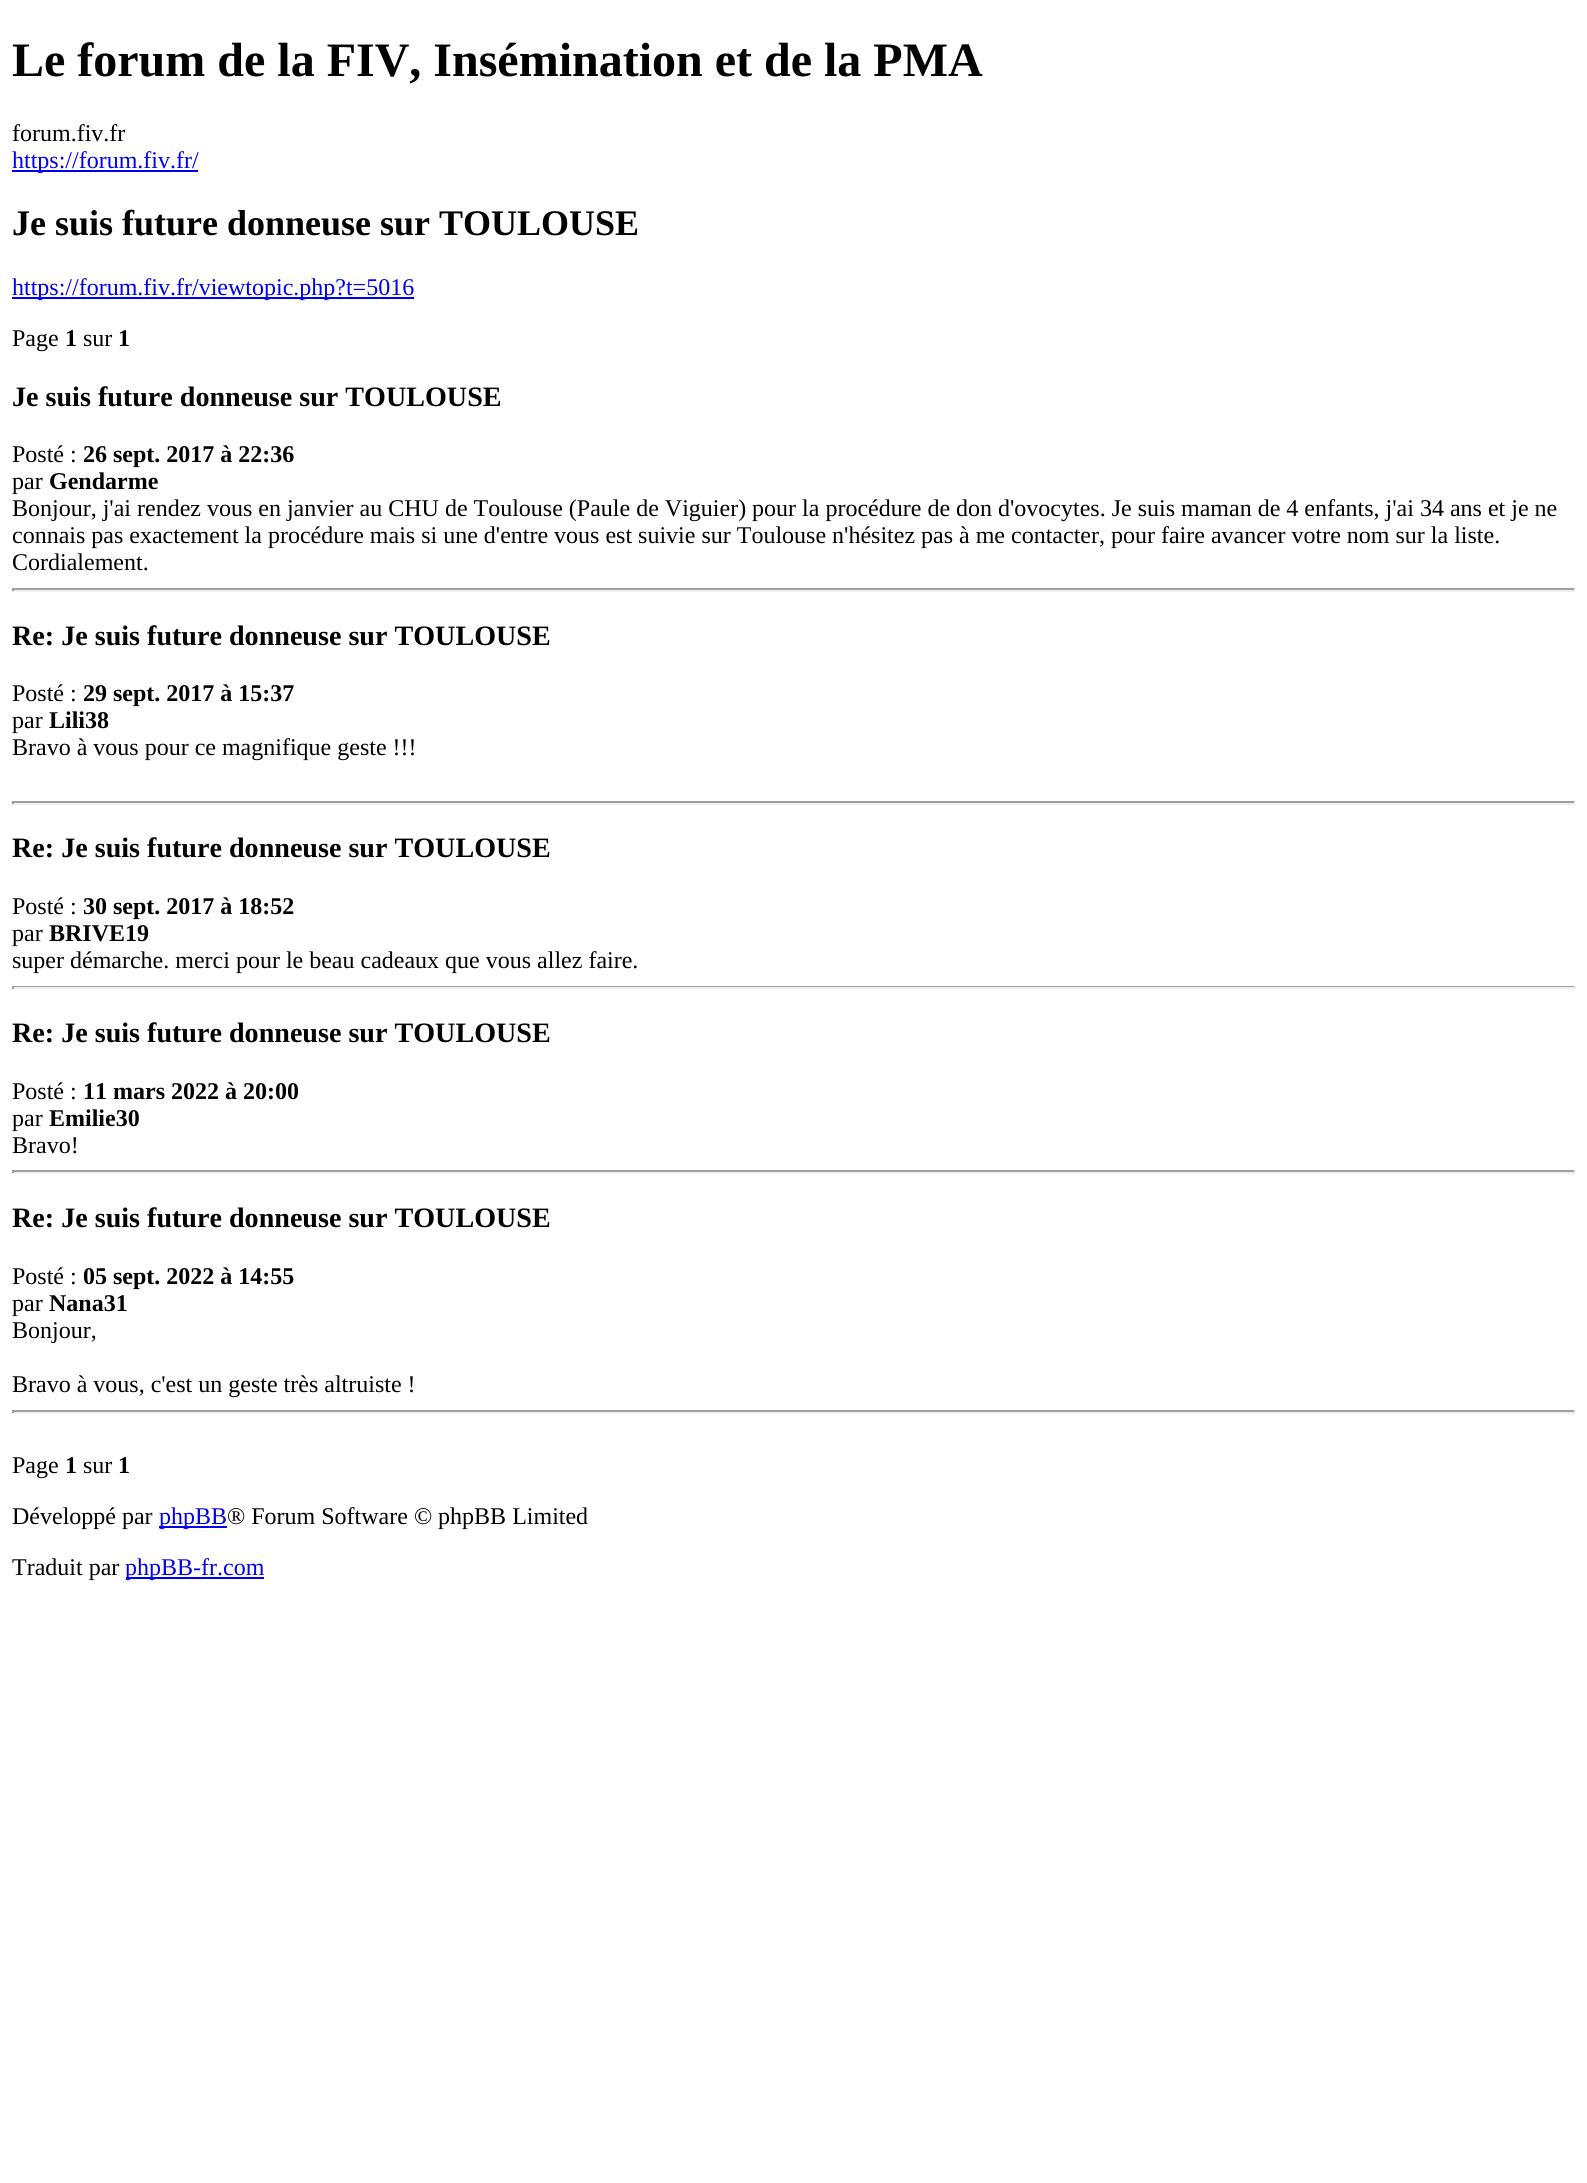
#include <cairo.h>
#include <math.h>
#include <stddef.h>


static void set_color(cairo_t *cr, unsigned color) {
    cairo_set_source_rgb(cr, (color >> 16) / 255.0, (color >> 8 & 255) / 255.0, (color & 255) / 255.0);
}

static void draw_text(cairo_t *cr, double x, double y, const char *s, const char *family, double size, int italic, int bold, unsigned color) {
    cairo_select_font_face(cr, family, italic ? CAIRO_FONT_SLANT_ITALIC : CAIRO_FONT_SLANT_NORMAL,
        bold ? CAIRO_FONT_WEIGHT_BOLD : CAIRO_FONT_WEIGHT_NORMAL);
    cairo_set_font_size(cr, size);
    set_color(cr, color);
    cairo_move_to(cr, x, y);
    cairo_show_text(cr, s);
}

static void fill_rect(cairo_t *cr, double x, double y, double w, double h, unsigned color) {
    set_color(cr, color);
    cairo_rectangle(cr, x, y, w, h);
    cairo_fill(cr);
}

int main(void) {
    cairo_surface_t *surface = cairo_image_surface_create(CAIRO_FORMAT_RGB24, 1587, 2183);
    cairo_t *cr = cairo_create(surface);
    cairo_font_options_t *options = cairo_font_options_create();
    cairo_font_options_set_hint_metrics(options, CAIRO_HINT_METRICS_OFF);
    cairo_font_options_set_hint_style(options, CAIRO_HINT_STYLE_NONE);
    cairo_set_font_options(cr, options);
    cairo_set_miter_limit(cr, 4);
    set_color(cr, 0xFFFFFF);
    cairo_paint(cr);
    draw_text(cr, 12, 76, "Le forum de la FIV, Insémination et de la PMA", "Liberation Serif", 48, 0, 1, 0x000000);
    draw_text(cr, 12, 141, "forum.fiv.fr", "Liberation Serif", 24, 0, 0, 0x000000);
    fill_rect(cr, 12, 170, 186, 2, 0x0000EE);
    draw_text(cr, 12, 168, "https://forum.fiv.fr/", "Liberation Serif", 24, 0, 0, 0x0000EE);
    draw_text(cr, 12, 235, "Je suis future donneuse sur TOULOUSE", "Liberation Serif", 36, 0, 1, 0x000000);
    fill_rect(cr, 12, 297, 402, 2, 0x0000EE);
    draw_text(cr, 12, 295, "https://forum.fiv.fr/viewtopic.php?t=5016", "Liberation Serif", 24, 0, 0, 0x0000EE);
    draw_text(cr, 12, 346, "Page", "Liberation Serif", 24, 0, 0, 0x000000);
    draw_text(cr, 65, 346, "1", "Liberation Serif", 24, 0, 1, 0x000000);
    draw_text(cr, 83, 346, "sur", "Liberation Serif", 24, 0, 0, 0x000000);
    draw_text(cr, 118, 346, "1", "Liberation Serif", 24, 0, 1, 0x000000);
    draw_text(cr, 12, 406, "Je suis future donneuse sur TOULOUSE", "Liberation Serif", 28.1, 0, 1, 0x000000);
    draw_text(cr, 12, 462, "Posté :", "Liberation Serif", 24, 0, 0, 0x000000);
    draw_text(cr, 83, 462, "26 sept. 2017 à 22:36", "Liberation Serif", 24, 0, 1, 0x000000);
    draw_text(cr, 12, 489, "par", "Liberation Serif", 24, 0, 0, 0x000000);
    draw_text(cr, 49, 489, "Gendarme", "Liberation Serif", 24, 0, 1, 0x000000);
    draw_text(cr, 12, 516, "Bonjour, j'ai rendez vous en janvier au CHU de Toulouse (Paule de Viguier) pour la procédure de don d'ovocytes. Je suis maman de 4 enfants, j'ai 34 ans et je ne", "Liberation Serif", 24, 0, 0, 0x000000);
    draw_text(cr, 12, 543, "connais pas exactement la procédure mais si une d'entre vous est suivie sur Toulouse n'hésitez pas à me contacter, pour faire avancer votre nom sur la liste.", "Liberation Serif", 24, 0, 0, 0x000000);
    draw_text(cr, 12, 570, "Cordialement.", "Liberation Serif", 24, 0, 0, 0x000000);
    fill_rect(cr, 12, 588, 1563, 2, 0x9F9F9F);
    fill_rect(cr, 1574, 588, 2, 3, 0xEEEEEE);
    fill_rect(cr, 12, 590, 1563, 2, 0xEEEEEE);
    fill_rect(cr, 12, 588, 2, 3, 0x9F9F9F);
    draw_text(cr, 12, 645, "Re: Je suis future donneuse sur TOULOUSE", "Liberation Serif", 28.1, 0, 1, 0x000000);
    draw_text(cr, 12, 701, "Posté :", "Liberation Serif", 24, 0, 0, 0x000000);
    draw_text(cr, 83, 701, "29 sept. 2017 à 15:37", "Liberation Serif", 24, 0, 1, 0x000000);
    draw_text(cr, 12, 728, "par", "Liberation Serif", 24, 0, 0, 0x000000);
    draw_text(cr, 49, 728, "Lili38", "Liberation Serif", 24, 0, 1, 0x000000);
    draw_text(cr, 12, 755, "Bravo à vous pour ce magnifique geste !!!", "Liberation Serif", 24, 0, 0, 0x000000);
    fill_rect(cr, 12, 801, 1563, 2, 0x9F9F9F);
    fill_rect(cr, 1574, 801, 2, 3, 0xEEEEEE);
    fill_rect(cr, 12, 803, 1563, 2, 0xEEEEEE);
    fill_rect(cr, 12, 801, 2, 3, 0x9F9F9F);
    draw_text(cr, 12, 857, "Re: Je suis future donneuse sur TOULOUSE", "Liberation Serif", 28.1, 0, 1, 0x000000);
    draw_text(cr, 12, 914, "Posté :", "Liberation Serif", 24, 0, 0, 0x000000);
    draw_text(cr, 83, 914, "30 sept. 2017 à 18:52", "Liberation Serif", 24, 0, 1, 0x000000);
    draw_text(cr, 12, 941, "par", "Liberation Serif", 24, 0, 0, 0x000000);
    draw_text(cr, 49, 941, "BRIVE19", "Liberation Serif", 24, 0, 1, 0x000000);
    draw_text(cr, 12, 968, "super démarche. merci pour le beau cadeaux que vous allez faire.", "Liberation Serif", 24, 0, 0, 0x000000);
    fill_rect(cr, 12, 986, 1563, 1, 0x9F9F9F);
    fill_rect(cr, 1574, 986, 2, 3, 0xEEEEEE);
    fill_rect(cr, 12, 987, 1563, 2, 0xEEEEEE);
    fill_rect(cr, 12, 986, 2, 3, 0x9F9F9F);
    draw_text(cr, 12, 1042, "Re: Je suis future donneuse sur TOULOUSE", "Liberation Serif", 28.1, 0, 1, 0x000000);
    draw_text(cr, 12, 1099, "Posté :", "Liberation Serif", 24, 0, 0, 0x000000);
    draw_text(cr, 83, 1099, "11 mars 2022 à 20:00", "Liberation Serif", 24, 0, 1, 0x000000);
    draw_text(cr, 12, 1126, "par", "Liberation Serif", 24, 0, 0, 0x000000);
    draw_text(cr, 49, 1126, "Emilie30", "Liberation Serif", 24, 0, 1, 0x000000);
    draw_text(cr, 12, 1153, "Bravo!", "Liberation Serif", 24, 0, 0, 0x000000);
    fill_rect(cr, 12, 1170, 1563, 2, 0x9F9F9F);
    fill_rect(cr, 1574, 1170, 2, 3, 0xEEEEEE);
    fill_rect(cr, 12, 1172, 1563, 2, 0xEEEEEE);
    fill_rect(cr, 12, 1170, 2, 3, 0x9F9F9F);
    draw_text(cr, 12, 1227, "Re: Je suis future donneuse sur TOULOUSE", "Liberation Serif", 28.1, 0, 1, 0x000000);
    draw_text(cr, 12, 1284, "Posté :", "Liberation Serif", 24, 0, 0, 0x000000);
    draw_text(cr, 83, 1284, "05 sept. 2022 à 14:55", "Liberation Serif", 24, 0, 1, 0x000000);
    draw_text(cr, 12, 1311, "par", "Liberation Serif", 24, 0, 0, 0x000000);
    draw_text(cr, 49, 1311, "Nana31", "Liberation Serif", 24, 0, 1, 0x000000);
    draw_text(cr, 12, 1338, "Bonjour,", "Liberation Serif", 24, 0, 0, 0x000000);
    draw_text(cr, 12, 1392, "Bravo à vous, c'est un geste très altruiste !", "Liberation Serif", 24, 0, 0, 0x000000);
    fill_rect(cr, 12, 1410, 1563, 2, 0x9F9F9F);
    fill_rect(cr, 1574, 1410, 2, 3, 0xEEEEEE);
    fill_rect(cr, 12, 1412, 1563, 2, 0xEEEEEE);
    fill_rect(cr, 12, 1410, 2, 3, 0x9F9F9F);
    draw_text(cr, 12, 1473, "Page", "Liberation Serif", 24, 0, 0, 0x000000);
    draw_text(cr, 65, 1473, "1", "Liberation Serif", 24, 0, 1, 0x000000);
    draw_text(cr, 83, 1473, "sur", "Liberation Serif", 24, 0, 0, 0x000000);
    draw_text(cr, 118, 1473, "1", "Liberation Serif", 24, 0, 1, 0x000000);
    draw_text(cr, 12, 1524, "Développé par", "Liberation Serif", 24, 0, 0, 0x000000);
    fill_rect(cr, 159, 1526, 68, 2, 0x0000EE);
    draw_text(cr, 159, 1524, "phpBB", "Liberation Serif", 24, 0, 0, 0x0000EE);
    draw_text(cr, 227, 1524, "® Forum Software © phpBB Limited", "Liberation Serif", 24, 0, 0, 0x000000);
    draw_text(cr, 12, 1575, "Traduit par", "Liberation Serif", 24, 0, 0, 0x000000);
    fill_rect(cr, 126, 1577, 138, 2, 0x0000EE);
    draw_text(cr, 125, 1575, "phpBB-fr.com", "Liberation Serif", 24, 0, 0, 0x0000EE);
    cairo_surface_write_to_png(surface, "output.png");
    cairo_font_options_destroy(options);
    cairo_destroy(cr);
    cairo_surface_destroy(surface);
    return 0;
}
